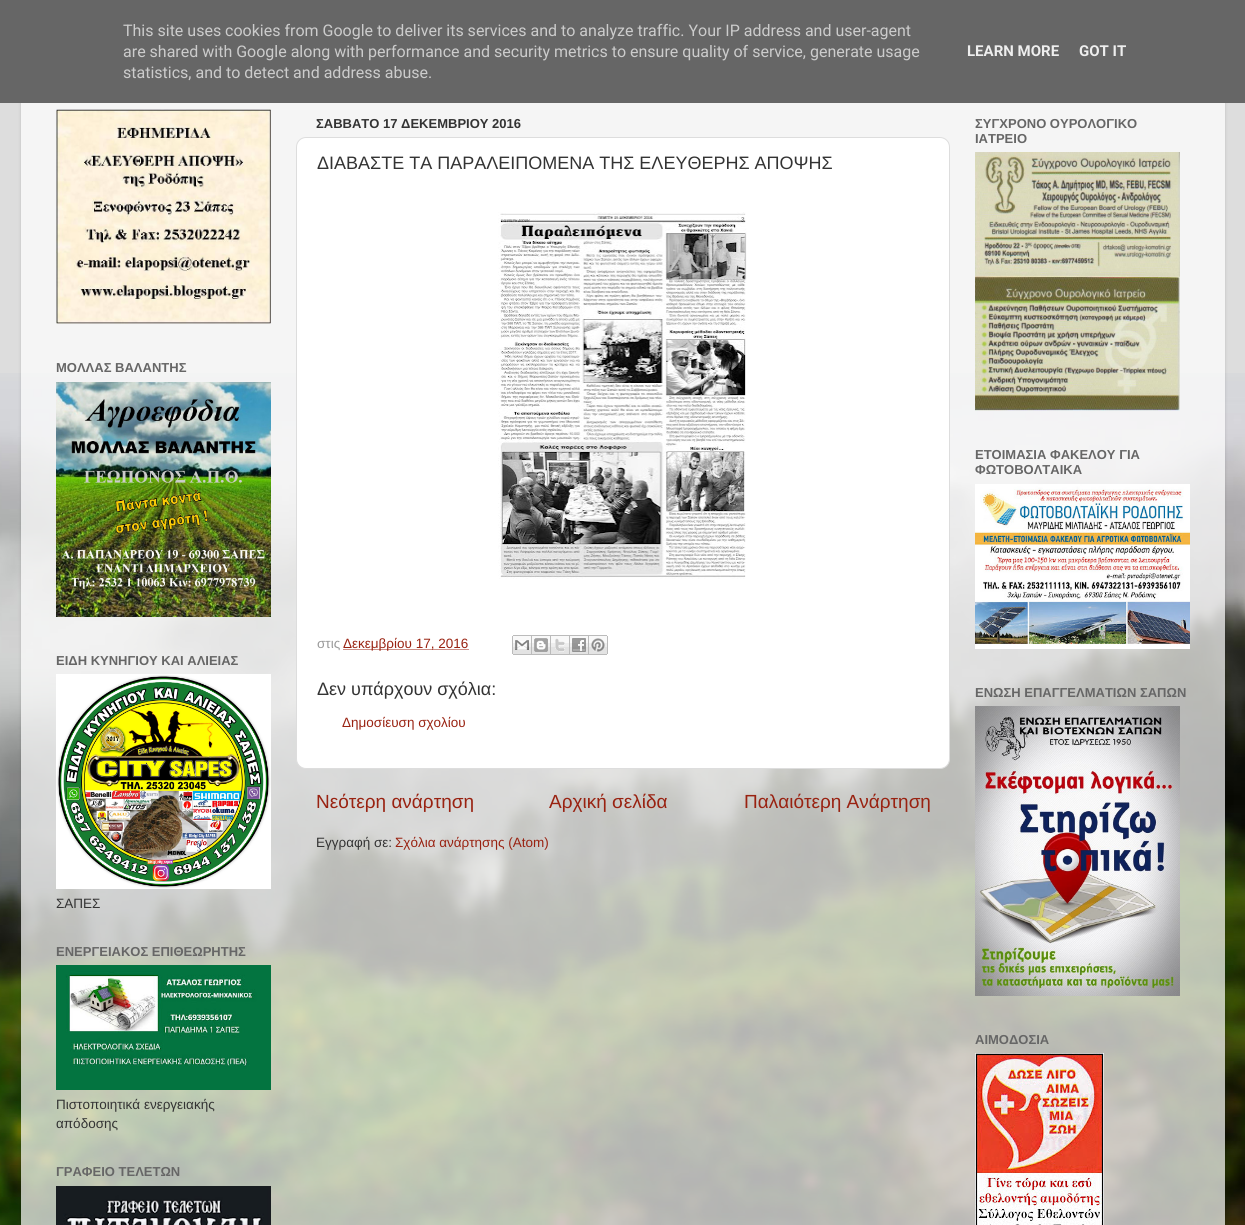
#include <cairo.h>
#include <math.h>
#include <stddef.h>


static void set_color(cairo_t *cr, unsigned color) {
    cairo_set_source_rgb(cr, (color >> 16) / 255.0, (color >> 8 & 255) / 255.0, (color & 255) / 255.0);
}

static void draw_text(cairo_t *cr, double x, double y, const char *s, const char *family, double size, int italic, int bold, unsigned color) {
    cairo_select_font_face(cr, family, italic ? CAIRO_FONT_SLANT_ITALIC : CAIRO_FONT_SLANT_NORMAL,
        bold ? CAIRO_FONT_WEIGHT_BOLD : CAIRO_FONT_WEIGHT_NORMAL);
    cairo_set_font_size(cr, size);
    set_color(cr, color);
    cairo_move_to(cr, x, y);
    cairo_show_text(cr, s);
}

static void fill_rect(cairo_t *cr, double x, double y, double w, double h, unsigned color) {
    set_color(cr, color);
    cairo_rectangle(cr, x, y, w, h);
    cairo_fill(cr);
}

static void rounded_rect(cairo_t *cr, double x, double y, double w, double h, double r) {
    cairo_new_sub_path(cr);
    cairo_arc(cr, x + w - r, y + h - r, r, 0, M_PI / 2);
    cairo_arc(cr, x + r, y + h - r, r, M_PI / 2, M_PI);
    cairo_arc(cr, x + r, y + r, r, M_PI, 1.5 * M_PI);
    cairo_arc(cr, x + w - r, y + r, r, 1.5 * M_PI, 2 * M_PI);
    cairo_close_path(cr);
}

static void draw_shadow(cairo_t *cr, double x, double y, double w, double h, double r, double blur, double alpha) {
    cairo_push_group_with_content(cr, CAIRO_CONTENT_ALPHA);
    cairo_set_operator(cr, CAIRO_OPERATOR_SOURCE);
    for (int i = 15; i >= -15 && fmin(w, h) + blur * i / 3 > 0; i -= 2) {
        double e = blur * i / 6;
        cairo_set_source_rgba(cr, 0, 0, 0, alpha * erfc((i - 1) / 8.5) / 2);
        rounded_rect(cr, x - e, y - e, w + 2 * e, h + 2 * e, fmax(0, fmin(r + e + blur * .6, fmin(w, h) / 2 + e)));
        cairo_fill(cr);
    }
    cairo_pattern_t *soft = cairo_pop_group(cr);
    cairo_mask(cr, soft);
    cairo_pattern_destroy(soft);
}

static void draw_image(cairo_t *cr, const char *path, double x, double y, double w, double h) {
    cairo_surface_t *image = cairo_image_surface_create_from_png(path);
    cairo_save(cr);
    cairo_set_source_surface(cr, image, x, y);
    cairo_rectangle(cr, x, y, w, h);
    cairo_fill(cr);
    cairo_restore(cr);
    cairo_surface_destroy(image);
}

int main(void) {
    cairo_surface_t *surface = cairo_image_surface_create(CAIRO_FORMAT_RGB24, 1245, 1225);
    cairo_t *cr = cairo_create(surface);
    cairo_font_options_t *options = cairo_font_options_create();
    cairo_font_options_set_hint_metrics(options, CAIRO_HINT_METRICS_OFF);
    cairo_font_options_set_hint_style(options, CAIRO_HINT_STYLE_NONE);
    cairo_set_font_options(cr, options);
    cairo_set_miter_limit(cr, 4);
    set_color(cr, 0xDDDDDD);
    cairo_paint(cr);
    fill_rect(cr, 21, 103, 1204, 270, 0xF5F5F5);
    draw_image(cr, "assets/img1.png", 0, 373, 1245, 852);
    cairo_save(cr);
    cairo_set_fill_rule(cr, CAIRO_FILL_RULE_EVEN_ODD);
    cairo_new_path(cr);
    cairo_move_to(cr, 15, 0);
    cairo_line_to(cr, 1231, 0);
    cairo_line_to(cr, 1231, 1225);
    cairo_line_to(cr, 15, 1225);
    cairo_close_path(cr);
    cairo_move_to(cr, 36, -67);
    cairo_line_to(cr, 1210, -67);
    cairo_curve_to(cr, 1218.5, -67, 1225, -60.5, 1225, -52);
    cairo_line_to(cr, 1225, 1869);
    cairo_curve_to(cr, 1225, 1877.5, 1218.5, 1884, 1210, 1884);
    cairo_line_to(cr, 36, 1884);
    cairo_curve_to(cr, 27.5, 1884, 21, 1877.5, 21, 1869);
    cairo_line_to(cr, 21, -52);
    cairo_curve_to(cr, 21, -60.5, 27.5, -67, 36, -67);
    cairo_close_path(cr);
    cairo_clip(cr);
    set_color(cr, 0x000000);
    draw_shadow(cr, 21, -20, 1204, 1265, 15, 1.5, 0.15);
    cairo_restore(cr);
    fill_rect(cr, 0, 0, 1245, 103, 0x666666);
    draw_text(cr, 123, 36, "This site uses cookies from Google to deliver its services and to analyze traffic. Your IP address and user-agent", "Roboto", 16, 0, 0, 0xCCCCCC);
    draw_text(cr, 123, 57, "are shared with Google along with performance and security metrics to ensure quality of service, generate usage", "Roboto", 16, 0, 0, 0xCCCCCC);
    draw_text(cr, 123, 78, "statistics, and to detect and address abuse.", "Roboto", 16, 0, 0, 0xCCCCCC);
    draw_text(cr, 967, 56, "LEARN MORE", "Roboto", 15, 0, 1, 0xEEEEEE);
    draw_text(cr, 1079, 56, "GOT IT", "Roboto", 15, 0, 1, 0xEEEEEE);
    draw_image(cr, "assets/img2.png", 56, 109, 215, 215);
    draw_text(cr, 56, 372, "ΜΟΛΛΑΣ ΒΑΛΑΝΤΗΣ", "Liberation Sans", 13, 0, 1, 0x666666);
    draw_image(cr, "assets/img3.png", 56, 382, 215, 235);
    draw_text(cr, 56, 665, "ΕΙΔΗ ΚΥΝΗΓΙΟΥ ΚΑΙ ΑΛΙΕΙΑΣ", "Liberation Sans", 13, 0, 1, 0x666666);
    draw_image(cr, "assets/img4.png", 56, 674, 215, 215);
    draw_text(cr, 56, 908, "ΣΑΠΕΣ", "Liberation Sans", 13.5, 0, 0, 0x333333);
    draw_text(cr, 56, 956, "ΕΝΕΡΓΕΙΑΚΟΣ ΕΠΙΘΕΩΡΗΤΗΣ", "Liberation Sans", 13, 0, 1, 0x666666);
    draw_image(cr, "assets/img5.png", 56, 965, 215, 125);
    draw_text(cr, 56, 1109, "Πιστοποιητικά ενεργειακής", "Liberation Sans", 13.5, 0, 0, 0x333333);
    draw_text(cr, 56, 1128, "απόδοσης", "Liberation Sans", 13.5, 0, 0, 0x333333);
    draw_text(cr, 56, 1176, "ΓΡΑΦΕΙΟ ΤΕΛΕΤΩΝ", "Liberation Sans", 13, 0, 1, 0x666666);
    draw_image(cr, "assets/img6.png", 56, 1186, 215, 39);
    draw_text(cr, 316, 128, "ΣΑΒΒΑΤΟ 17 ΔΕΚΕΜΒΡΙΟΥ 2016", "Liberation Sans", 13, 0, 1, 0x333333);
    set_color(cr, 0xFFFFFF);
    rounded_rect(cr, 296.5, 137.5, 653, 631, 9.5);
    cairo_fill_preserve(cr);
    set_color(cr, 0xDDDDDD);
    cairo_set_line_width(cr, 1);
    cairo_stroke(cr);
    draw_text(cr, 317, 169, "ΔΙΑΒΑΣΤΕ ΤΑ ΠΑΡΑΛΕΙΠΟΜΕΝΑ ΤΗΣ ΕΛΕΥΘΕΡΗΣ ΑΠΟΨΗΣ", "Liberation Sans", 18, 0, 0, 0x333333);
    draw_image(cr, "assets/img7.png", 498, 212, 249, 367);
    draw_text(cr, 317, 648, "στις", "Liberation Sans", 13.5, 0, 0, 0x999999);
    cairo_new_path(cr);
    cairo_move_to(cr, 343.5, 649.5);
    cairo_line_to(cr, 468.5, 649.5);
    set_color(cr, 0x992211);
    cairo_set_dash(cr, (double[]){1, 1}, 2, 0);
    cairo_stroke(cr);
    draw_text(cr, 343, 648, "Δεκεμβρίου 17, 2016", "Liberation Sans", 13.5, 0, 0, 0x992211);
    draw_image(cr, "assets/img8.png", 512, 635, 20, 20);
    draw_image(cr, "assets/img9.png", 532, 635, 19, 20);
    draw_image(cr, "assets/img10.png", 551, 635, 19, 20);
    draw_image(cr, "assets/img11.png", 570, 635, 19, 20);
    draw_image(cr, "assets/img12.png", 589, 635, 19, 20);
    draw_text(cr, 317, 695, "Δεν υπάρχουν σχόλια:", "Liberation Sans", 18, 0, 0, 0x333333);
    draw_text(cr, 342, 727, "Δημοσίευση σχολίου", "Liberation Sans", 13.5, 0, 0, 0x992211);
    draw_text(cr, 316, 808, "Νεότερη ανάρτηση", "Liberation Sans", 19, 0, 0, 0x992211);
    draw_text(cr, 549, 808, "Αρχική σελίδα", "Liberation Sans", 19, 0, 0, 0x992211);
    draw_text(cr, 744, 808, "Παλαιότερη Ανάρτηση", "Liberation Sans", 19, 0, 0, 0x992211);
    draw_text(cr, 316, 847, "Εγγραφή σε:", "Liberation Sans", 13.5, 0, 0, 0x333333);
    draw_text(cr, 395, 847, "Σχόλια ανάρτησης (Atom)", "Liberation Sans", 13.5, 0, 0, 0x992211);
    draw_text(cr, 975, 128, "ΣΥΓΧΡΟΝΟ ΟΥΡΟΛΟΓΙΚΟ", "Liberation Sans", 13, 0, 1, 0x666666);
    draw_text(cr, 975, 143, "ΙΑΤΡΕΙΟ", "Liberation Sans", 13, 0, 1, 0x666666);
    draw_image(cr, "assets/img13.png", 975, 152, 205, 259);
    draw_text(cr, 975, 459, "ΕΤΟΙΜΑΣΙΑ ΦΑΚΕΛΟΥ ΓΙΑ", "Liberation Sans", 13, 0, 1, 0x666666);
    draw_text(cr, 975, 474, "ΦΩΤΟΒΟΛΤΑΙΚΑ", "Liberation Sans", 13, 0, 1, 0x666666);
    draw_image(cr, "assets/img14.png", 975, 484, 215, 165);
    draw_text(cr, 975, 697, "ΕΝΩΣΗ ΕΠΑΓΓΕΛΜΑΤΙΩΝ ΣΑΠΩΝ", "Liberation Sans", 13, 0, 1, 0x666666);
    draw_image(cr, "assets/img15.png", 975, 706, 205, 290);
    draw_text(cr, 975, 1044, "ΑΙΜΟΔΟΣΙΑ", "Liberation Sans", 13, 0, 1, 0x666666);
    draw_image(cr, "assets/img16.png", 975, 1053, 129, 172);
    cairo_surface_write_to_png(surface, "output.png");
    cairo_font_options_destroy(options);
    cairo_destroy(cr);
    cairo_surface_destroy(surface);
    return 0;
}
